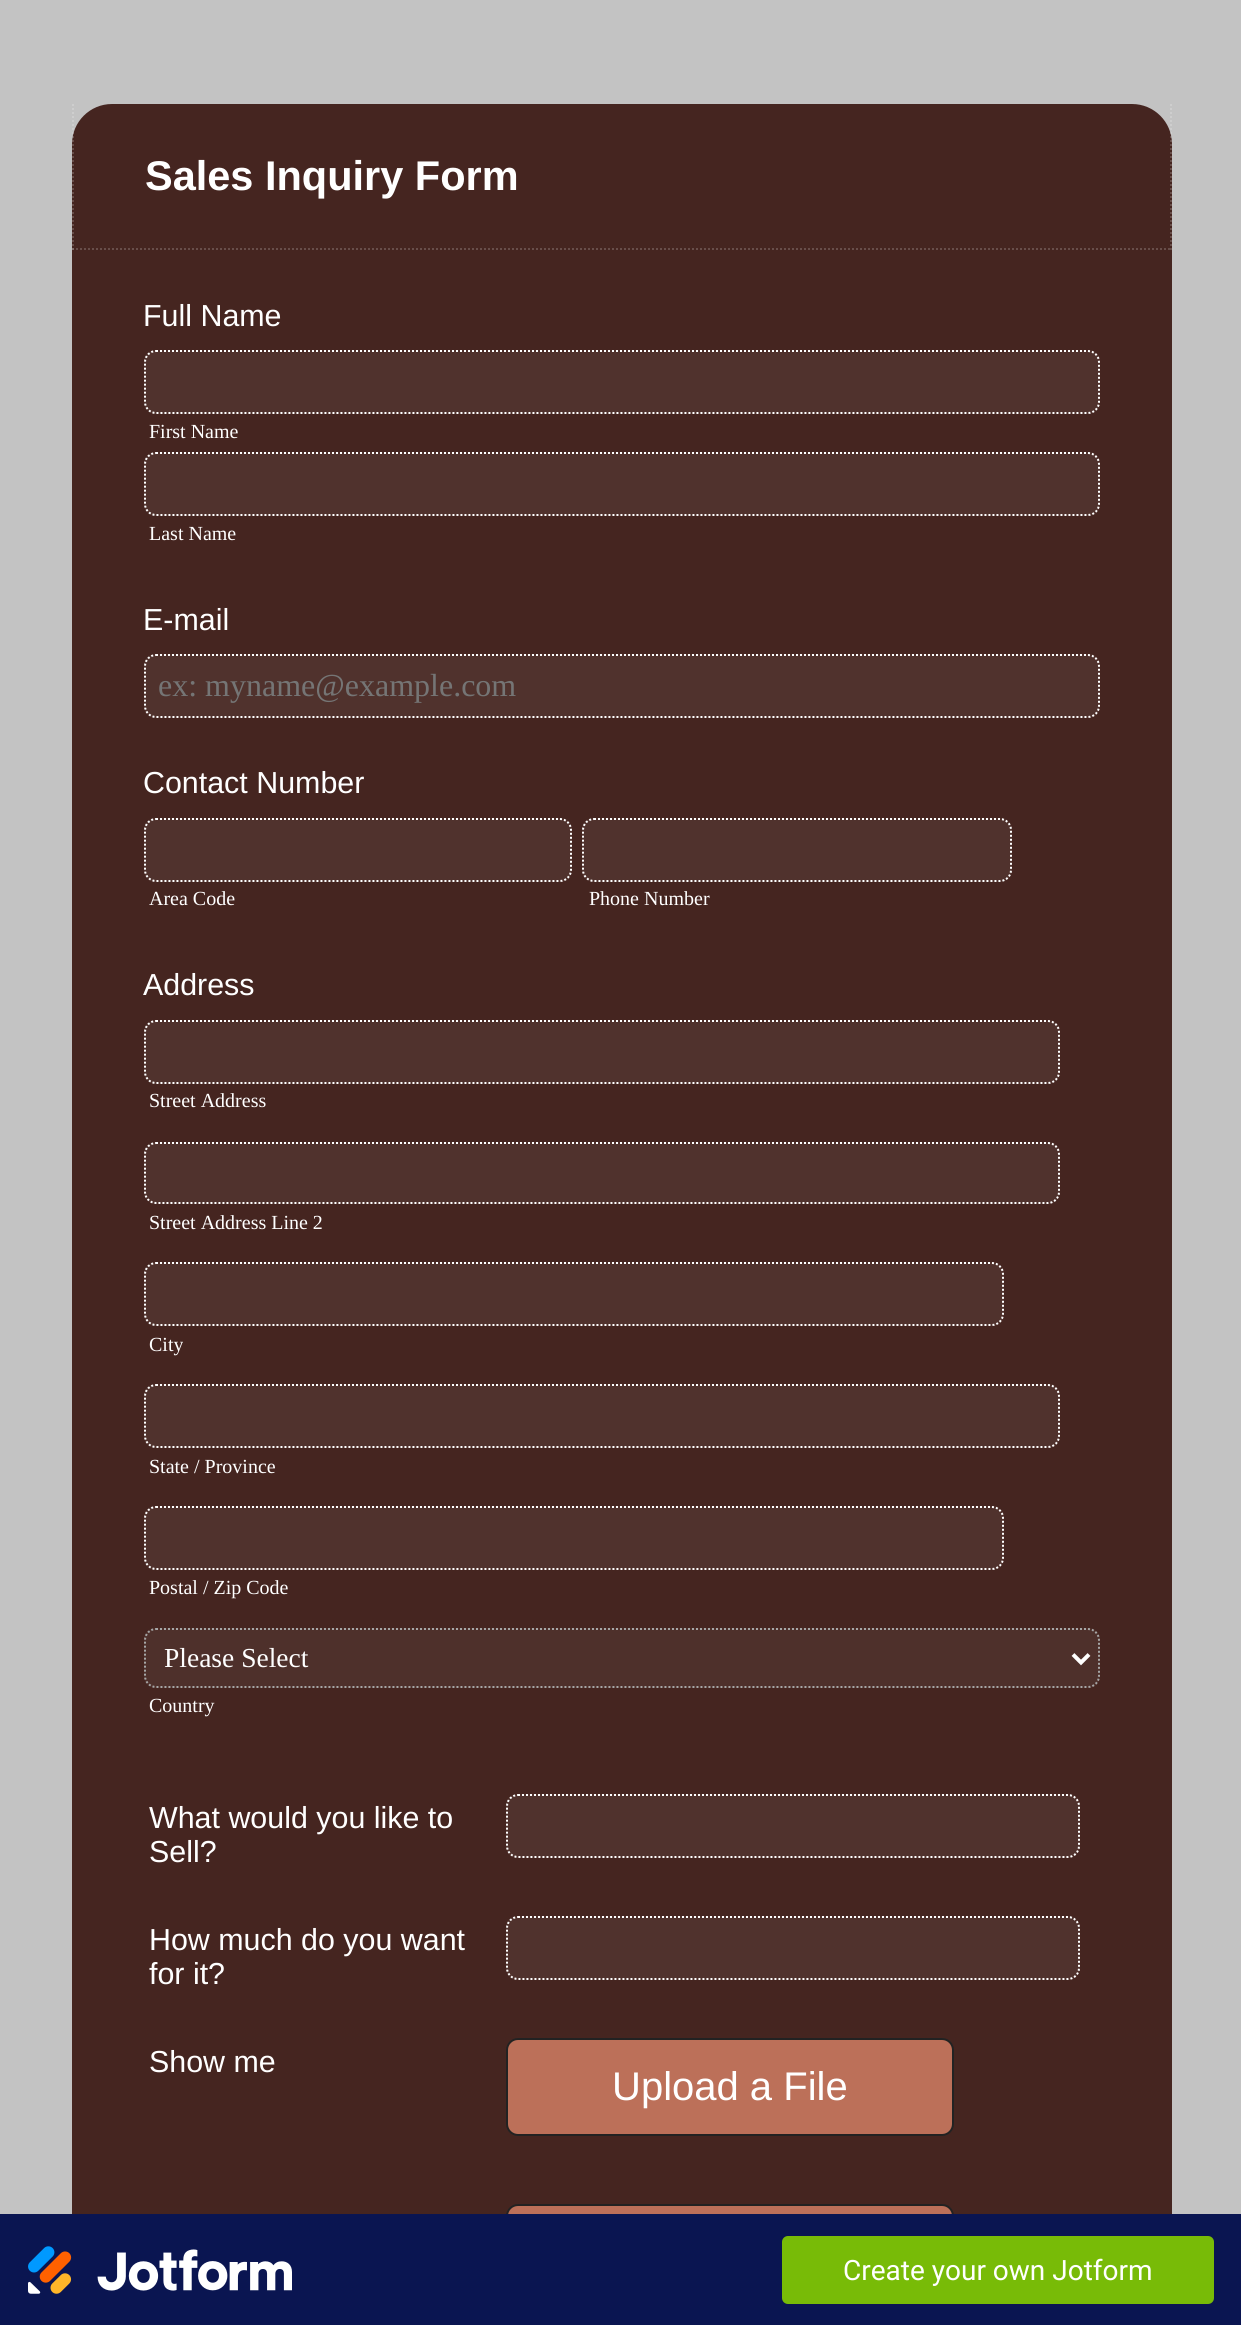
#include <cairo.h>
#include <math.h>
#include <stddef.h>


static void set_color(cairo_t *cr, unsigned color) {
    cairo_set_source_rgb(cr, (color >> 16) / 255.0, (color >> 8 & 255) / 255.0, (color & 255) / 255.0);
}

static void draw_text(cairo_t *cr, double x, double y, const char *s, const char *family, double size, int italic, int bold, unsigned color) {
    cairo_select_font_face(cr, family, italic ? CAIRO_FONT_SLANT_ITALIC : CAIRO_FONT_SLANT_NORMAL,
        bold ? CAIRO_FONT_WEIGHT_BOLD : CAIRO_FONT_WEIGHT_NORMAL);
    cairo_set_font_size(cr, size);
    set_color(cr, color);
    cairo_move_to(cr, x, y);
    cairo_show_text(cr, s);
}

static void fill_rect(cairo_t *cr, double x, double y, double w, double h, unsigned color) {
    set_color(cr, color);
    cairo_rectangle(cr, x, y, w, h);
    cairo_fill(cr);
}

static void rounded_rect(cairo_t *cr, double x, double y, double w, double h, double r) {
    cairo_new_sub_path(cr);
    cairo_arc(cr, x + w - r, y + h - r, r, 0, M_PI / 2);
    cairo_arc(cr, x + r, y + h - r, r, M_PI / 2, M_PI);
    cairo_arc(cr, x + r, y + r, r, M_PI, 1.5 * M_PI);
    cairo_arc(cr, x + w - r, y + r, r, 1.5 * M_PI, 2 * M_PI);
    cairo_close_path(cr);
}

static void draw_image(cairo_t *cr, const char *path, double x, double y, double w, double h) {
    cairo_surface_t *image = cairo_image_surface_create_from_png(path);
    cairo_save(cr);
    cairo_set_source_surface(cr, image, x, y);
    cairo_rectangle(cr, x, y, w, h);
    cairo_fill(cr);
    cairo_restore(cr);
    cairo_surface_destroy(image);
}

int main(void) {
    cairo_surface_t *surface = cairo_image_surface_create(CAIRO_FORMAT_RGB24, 1241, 2325);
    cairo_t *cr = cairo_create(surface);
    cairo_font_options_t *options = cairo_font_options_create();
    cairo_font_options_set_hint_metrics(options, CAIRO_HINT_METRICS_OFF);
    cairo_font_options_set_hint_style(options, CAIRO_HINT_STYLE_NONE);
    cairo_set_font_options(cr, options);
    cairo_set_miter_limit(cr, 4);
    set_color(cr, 0xC3C3C3);
    cairo_paint(cr);
    set_color(cr, 0x452520);
    rounded_rect(cr, 72, 104, 1100, 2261, 40);
    cairo_fill(cr);
    cairo_new_path(cr);
    cairo_move_to(cr, 1171, 104);
    cairo_line_to(cr, 1171, 250);
    cairo_set_source_rgba(cr, 1, 1, 1, 0.19);
    cairo_set_dash(cr, (double[]){2, 2}, 2, 0);
    cairo_stroke(cr);
    cairo_new_path(cr);
    cairo_move_to(cr, 72, 249);
    cairo_line_to(cr, 1172, 249);
    set_color(cr, 0x684E4A);
    cairo_stroke(cr);
    cairo_new_path(cr);
    cairo_move_to(cr, 73, 104);
    cairo_line_to(cr, 73, 250);
    cairo_set_source_rgba(cr, 1, 1, 1, 0.19);
    cairo_stroke(cr);
    draw_text(cr, 145, 190, "Sales Inquiry Form", "Liberation Sans", 41.5, 0, 1, 0xFFFFFF);
    draw_text(cr, 143, 326, "Full Name", "Liberation Sans", 30.4, 0, 0, 0xFFFFFF);
    set_color(cr, 0x50322D);
    rounded_rect(cr, 144, 350, 956, 64, 12);
    cairo_fill(cr);
    cairo_new_path(cr);
    cairo_move_to(cr, 156, 351);
    cairo_line_to(cr, 1088, 351);
    cairo_curve_to(cr, 1094, 351, 1099, 356, 1099, 362);
    cairo_line_to(cr, 1099, 402);
    cairo_curve_to(cr, 1099, 408, 1094, 413, 1088, 413);
    cairo_line_to(cr, 156, 413);
    cairo_curve_to(cr, 150, 413, 145, 408, 145, 402);
    cairo_line_to(cr, 145, 362);
    cairo_curve_to(cr, 145, 356, 150, 351, 156, 351);
    cairo_close_path(cr);
    set_color(cr, 0xFFFFFF);
    cairo_stroke(cr);
    draw_text(cr, 149, 438, "First Name", "Liberation Serif", 20, 0, 0, 0xFFFFFF);
    set_color(cr, 0x50322D);
    rounded_rect(cr, 144, 452, 956, 64, 12);
    cairo_fill(cr);
    cairo_new_path(cr);
    cairo_move_to(cr, 156, 453);
    cairo_line_to(cr, 1088, 453);
    cairo_curve_to(cr, 1094, 453, 1099, 458, 1099, 464);
    cairo_line_to(cr, 1099, 504);
    cairo_curve_to(cr, 1099, 510, 1094, 515, 1088, 515);
    cairo_line_to(cr, 156, 515);
    cairo_curve_to(cr, 150, 515, 145, 510, 145, 504);
    cairo_line_to(cr, 145, 464);
    cairo_curve_to(cr, 145, 458, 150, 453, 156, 453);
    cairo_close_path(cr);
    set_color(cr, 0xFFFFFF);
    cairo_stroke(cr);
    draw_text(cr, 149, 540, "Last Name", "Liberation Serif", 20, 0, 0, 0xFFFFFF);
    draw_text(cr, 143, 630, "E-mail", "Liberation Sans", 30.4, 0, 0, 0xFFFFFF);
    set_color(cr, 0x50322D);
    rounded_rect(cr, 144, 654, 956, 64, 12);
    cairo_fill(cr);
    cairo_new_path(cr);
    cairo_move_to(cr, 156, 655);
    cairo_line_to(cr, 1088, 655);
    cairo_curve_to(cr, 1094, 655, 1099, 660, 1099, 666);
    cairo_line_to(cr, 1099, 706);
    cairo_curve_to(cr, 1099, 712, 1094, 717, 1088, 717);
    cairo_line_to(cr, 156, 717);
    cairo_curve_to(cr, 150, 717, 145, 712, 145, 706);
    cairo_line_to(cr, 145, 666);
    cairo_curve_to(cr, 145, 660, 150, 655, 156, 655);
    cairo_close_path(cr);
    set_color(cr, 0xFFFFFF);
    cairo_stroke(cr);
    draw_text(cr, 158, 696, "ex: myname@example.com", "Liberation Serif", 32, 0, 0, 0x757575);
    draw_text(cr, 143, 793, "Contact Number", "Liberation Sans", 30.4, 0, 0, 0xFFFFFF);
    set_color(cr, 0x50322D);
    rounded_rect(cr, 144, 818, 428, 64, 12);
    cairo_fill(cr);
    cairo_new_path(cr);
    cairo_move_to(cr, 156, 819);
    cairo_line_to(cr, 560, 819);
    cairo_curve_to(cr, 566, 819, 571, 824, 571, 830);
    cairo_line_to(cr, 571, 870);
    cairo_curve_to(cr, 571, 876, 566, 881, 560, 881);
    cairo_line_to(cr, 156, 881);
    cairo_curve_to(cr, 150, 881, 145, 876, 145, 870);
    cairo_line_to(cr, 145, 830);
    cairo_curve_to(cr, 145, 824, 150, 819, 156, 819);
    cairo_close_path(cr);
    set_color(cr, 0xFFFFFF);
    cairo_stroke(cr);
    draw_text(cr, 149, 905, "Area Code", "Liberation Serif", 20, 0, 0, 0xFFFFFF);
    set_color(cr, 0x50322D);
    rounded_rect(cr, 582, 818, 430, 64, 12);
    cairo_fill(cr);
    cairo_new_path(cr);
    cairo_move_to(cr, 594, 819);
    cairo_line_to(cr, 1000, 819);
    cairo_curve_to(cr, 1006, 819, 1011, 824, 1011, 830);
    cairo_line_to(cr, 1011, 870);
    cairo_curve_to(cr, 1011, 876, 1006, 881, 1000, 881);
    cairo_line_to(cr, 594, 881);
    cairo_curve_to(cr, 588, 881, 583, 876, 583, 870);
    cairo_line_to(cr, 583, 830);
    cairo_curve_to(cr, 583, 824, 588, 819, 594, 819);
    cairo_close_path(cr);
    set_color(cr, 0xFFFFFF);
    cairo_stroke(cr);
    draw_text(cr, 589, 905, "Phone Number", "Liberation Serif", 20, 0, 0, 0xFFFFFF);
    draw_text(cr, 143, 995, "Address", "Liberation Sans", 30.4, 0, 0, 0xFFFFFF);
    set_color(cr, 0x50322D);
    rounded_rect(cr, 144, 1020, 916, 64, 12);
    cairo_fill(cr);
    cairo_new_path(cr);
    cairo_move_to(cr, 156, 1021);
    cairo_line_to(cr, 1048, 1021);
    cairo_curve_to(cr, 1054, 1021, 1059, 1026, 1059, 1032);
    cairo_line_to(cr, 1059, 1072);
    cairo_curve_to(cr, 1059, 1078, 1054, 1083, 1048, 1083);
    cairo_line_to(cr, 156, 1083);
    cairo_curve_to(cr, 150, 1083, 145, 1078, 145, 1072);
    cairo_line_to(cr, 145, 1032);
    cairo_curve_to(cr, 145, 1026, 150, 1021, 156, 1021);
    cairo_close_path(cr);
    set_color(cr, 0xFFFFFF);
    cairo_stroke(cr);
    draw_text(cr, 149, 1107, "Street Address", "Liberation Serif", 20, 0, 0, 0xFFFFFF);
    set_color(cr, 0x50322D);
    rounded_rect(cr, 144, 1142, 916, 62, 12);
    cairo_fill(cr);
    cairo_new_path(cr);
    cairo_move_to(cr, 156, 1143);
    cairo_line_to(cr, 1048, 1143);
    cairo_curve_to(cr, 1054, 1143, 1059, 1148, 1059, 1154);
    cairo_line_to(cr, 1059, 1192);
    cairo_curve_to(cr, 1059, 1198, 1054, 1203, 1048, 1203);
    cairo_line_to(cr, 156, 1203);
    cairo_curve_to(cr, 150, 1203, 145, 1198, 145, 1192);
    cairo_line_to(cr, 145, 1154);
    cairo_curve_to(cr, 145, 1148, 150, 1143, 156, 1143);
    cairo_close_path(cr);
    set_color(cr, 0xFFFFFF);
    cairo_stroke(cr);
    draw_text(cr, 149, 1229, "Street Address Line 2", "Liberation Serif", 20, 0, 0, 0xFFFFFF);
    set_color(cr, 0x50322D);
    rounded_rect(cr, 144, 1262, 860, 64, 12);
    cairo_fill(cr);
    cairo_new_path(cr);
    cairo_move_to(cr, 156, 1263);
    cairo_line_to(cr, 992, 1263);
    cairo_curve_to(cr, 998, 1263, 1003, 1268, 1003, 1274);
    cairo_line_to(cr, 1003, 1314);
    cairo_curve_to(cr, 1003, 1320, 998, 1325, 992, 1325);
    cairo_line_to(cr, 156, 1325);
    cairo_curve_to(cr, 150, 1325, 145, 1320, 145, 1314);
    cairo_line_to(cr, 145, 1274);
    cairo_curve_to(cr, 145, 1268, 150, 1263, 156, 1263);
    cairo_close_path(cr);
    set_color(cr, 0xFFFFFF);
    cairo_stroke(cr);
    draw_text(cr, 149, 1351, "City", "Liberation Serif", 20, 0, 0, 0xFFFFFF);
    set_color(cr, 0x50322D);
    rounded_rect(cr, 144, 1384, 916, 64, 12);
    cairo_fill(cr);
    cairo_new_path(cr);
    cairo_move_to(cr, 156, 1385);
    cairo_line_to(cr, 1048, 1385);
    cairo_curve_to(cr, 1054, 1385, 1059, 1390, 1059, 1396);
    cairo_line_to(cr, 1059, 1436);
    cairo_curve_to(cr, 1059, 1442, 1054, 1447, 1048, 1447);
    cairo_line_to(cr, 156, 1447);
    cairo_curve_to(cr, 150, 1447, 145, 1442, 145, 1436);
    cairo_line_to(cr, 145, 1396);
    cairo_curve_to(cr, 145, 1390, 150, 1385, 156, 1385);
    cairo_close_path(cr);
    set_color(cr, 0xFFFFFF);
    cairo_stroke(cr);
    draw_text(cr, 149, 1473, "State / Province", "Liberation Serif", 20, 0, 0, 0xFFFFFF);
    set_color(cr, 0x50322D);
    rounded_rect(cr, 144, 1506, 860, 64, 12);
    cairo_fill(cr);
    cairo_new_path(cr);
    cairo_move_to(cr, 156, 1507);
    cairo_line_to(cr, 992, 1507);
    cairo_curve_to(cr, 998, 1507, 1003, 1512, 1003, 1518);
    cairo_line_to(cr, 1003, 1558);
    cairo_curve_to(cr, 1003, 1564, 998, 1569, 992, 1569);
    cairo_line_to(cr, 156, 1569);
    cairo_curve_to(cr, 150, 1569, 145, 1564, 145, 1558);
    cairo_line_to(cr, 145, 1518);
    cairo_curve_to(cr, 145, 1512, 150, 1507, 156, 1507);
    cairo_close_path(cr);
    set_color(cr, 0xFFFFFF);
    cairo_stroke(cr);
    draw_text(cr, 149, 1594, "Postal / Zip Code", "Liberation Serif", 20, 0, 0, 0xFFFFFF);
    set_color(cr, 0x4E302B);
    rounded_rect(cr, 144, 1628, 956, 60, 12);
    cairo_fill(cr);
    cairo_new_path(cr);
    cairo_move_to(cr, 156, 1629);
    cairo_line_to(cr, 1088, 1629);
    cairo_curve_to(cr, 1094, 1629, 1099, 1634, 1099, 1640);
    cairo_line_to(cr, 1099, 1676);
    cairo_curve_to(cr, 1099, 1682, 1094, 1687, 1088, 1687);
    cairo_line_to(cr, 156, 1687);
    cairo_curve_to(cr, 150, 1687, 145, 1682, 145, 1676);
    cairo_line_to(cr, 145, 1640);
    cairo_curve_to(cr, 145, 1634, 150, 1629, 156, 1629);
    cairo_close_path(cr);
    set_color(cr, 0xA6A6A6);
    cairo_stroke(cr);
    cairo_new_path(cr);
    cairo_move_to(cr, 1073, 1654.5);
    cairo_line_to(cr, 1081, 1662.5);
    cairo_line_to(cr, 1089, 1654.5);
    set_color(cr, 0xFFFFFF);
    cairo_set_line_width(cr, 4);
    cairo_set_dash(cr, NULL, 0, 0);
    cairo_stroke(cr);
    draw_text(cr, 164, 1667, "Please Select", "Liberation Serif", 27.5, 0, 0, 0xFFFFFF);
    draw_text(cr, 149, 1712, "Country", "Liberation Serif", 20, 0, 0, 0xFFFFFF);
    draw_text(cr, 149, 1828, "What would you like to", "Liberation Sans", 30.4, 0, 0, 0xFFFFFF);
    draw_text(cr, 149, 1862, "Sell?", "Liberation Sans", 30.4, 0, 0, 0xFFFFFF);
    set_color(cr, 0x50322D);
    rounded_rect(cr, 506, 1794, 574, 64, 12);
    cairo_fill(cr);
    cairo_new_path(cr);
    cairo_move_to(cr, 518, 1795);
    cairo_line_to(cr, 1068, 1795);
    cairo_curve_to(cr, 1074, 1795, 1079, 1800, 1079, 1806);
    cairo_line_to(cr, 1079, 1846);
    cairo_curve_to(cr, 1079, 1852, 1074, 1857, 1068, 1857);
    cairo_line_to(cr, 518, 1857);
    cairo_curve_to(cr, 512, 1857, 507, 1852, 507, 1846);
    cairo_line_to(cr, 507, 1806);
    cairo_curve_to(cr, 507, 1800, 512, 1795, 518, 1795);
    cairo_close_path(cr);
    set_color(cr, 0xFFFFFF);
    cairo_set_line_width(cr, 2);
    cairo_set_dash(cr, (double[]){2, 2}, 2, 0);
    cairo_stroke(cr);
    draw_text(cr, 149, 1950, "How much do you want", "Liberation Sans", 30.4, 0, 0, 0xFFFFFF);
    draw_text(cr, 149, 1984, "for it?", "Liberation Sans", 30.4, 0, 0, 0xFFFFFF);
    set_color(cr, 0x50322D);
    rounded_rect(cr, 506, 1916, 574, 64, 12);
    cairo_fill(cr);
    cairo_new_path(cr);
    cairo_move_to(cr, 518, 1917);
    cairo_line_to(cr, 1068, 1917);
    cairo_curve_to(cr, 1074, 1917, 1079, 1922, 1079, 1928);
    cairo_line_to(cr, 1079, 1968);
    cairo_curve_to(cr, 1079, 1974, 1074, 1979, 1068, 1979);
    cairo_line_to(cr, 518, 1979);
    cairo_curve_to(cr, 512, 1979, 507, 1974, 507, 1968);
    cairo_line_to(cr, 507, 1928);
    cairo_curve_to(cr, 507, 1922, 512, 1917, 518, 1917);
    cairo_close_path(cr);
    set_color(cr, 0xFFFFFF);
    cairo_stroke(cr);
    draw_text(cr, 149, 2072, "Show me", "Liberation Sans", 30.4, 0, 0, 0xFFFFFF);
    set_color(cr, 0xBC7059);
    rounded_rect(cr, 507, 2039, 446, 96, 11);
    cairo_fill_preserve(cr);
    set_color(cr, 0x222222);
    cairo_set_dash(cr, NULL, 0, 0);
    cairo_stroke(cr);
    draw_text(cr, 612, 2100, "Upload a File", "Liberation Sans", 40, 0, 0, 0xFFFFFF);
    set_color(cr, 0xBC7059);
    rounded_rect(cr, 507, 2205, 446, 96, 11);
    cairo_fill_preserve(cr);
    set_color(cr, 0x222222);
    cairo_stroke(cr);
    fill_rect(cr, 0, 2214, 1241, 111, 0x0A1551);
    draw_image(cr, "assets/img1.png", 28, 2246, 264, 48);
    set_color(cr, 0x78BB07);
    rounded_rect(cr, 782, 2236, 432, 68, 6);
    cairo_fill(cr);
    draw_text(cr, 843, 2280, "Create your own Jotform", "Roboto", 28, 0, 0, 0xFFFFFF);
    cairo_surface_write_to_png(surface, "output.png");
    cairo_font_options_destroy(options);
    cairo_destroy(cr);
    cairo_surface_destroy(surface);
    return 0;
}
